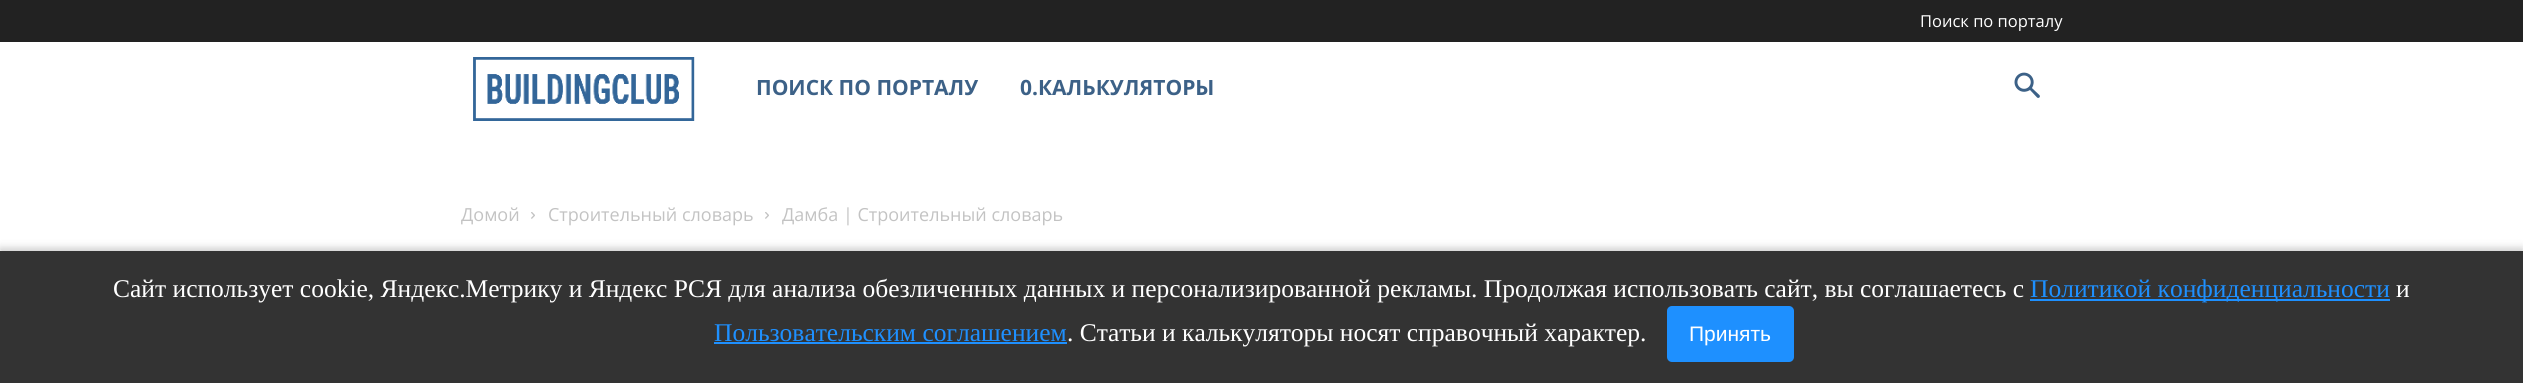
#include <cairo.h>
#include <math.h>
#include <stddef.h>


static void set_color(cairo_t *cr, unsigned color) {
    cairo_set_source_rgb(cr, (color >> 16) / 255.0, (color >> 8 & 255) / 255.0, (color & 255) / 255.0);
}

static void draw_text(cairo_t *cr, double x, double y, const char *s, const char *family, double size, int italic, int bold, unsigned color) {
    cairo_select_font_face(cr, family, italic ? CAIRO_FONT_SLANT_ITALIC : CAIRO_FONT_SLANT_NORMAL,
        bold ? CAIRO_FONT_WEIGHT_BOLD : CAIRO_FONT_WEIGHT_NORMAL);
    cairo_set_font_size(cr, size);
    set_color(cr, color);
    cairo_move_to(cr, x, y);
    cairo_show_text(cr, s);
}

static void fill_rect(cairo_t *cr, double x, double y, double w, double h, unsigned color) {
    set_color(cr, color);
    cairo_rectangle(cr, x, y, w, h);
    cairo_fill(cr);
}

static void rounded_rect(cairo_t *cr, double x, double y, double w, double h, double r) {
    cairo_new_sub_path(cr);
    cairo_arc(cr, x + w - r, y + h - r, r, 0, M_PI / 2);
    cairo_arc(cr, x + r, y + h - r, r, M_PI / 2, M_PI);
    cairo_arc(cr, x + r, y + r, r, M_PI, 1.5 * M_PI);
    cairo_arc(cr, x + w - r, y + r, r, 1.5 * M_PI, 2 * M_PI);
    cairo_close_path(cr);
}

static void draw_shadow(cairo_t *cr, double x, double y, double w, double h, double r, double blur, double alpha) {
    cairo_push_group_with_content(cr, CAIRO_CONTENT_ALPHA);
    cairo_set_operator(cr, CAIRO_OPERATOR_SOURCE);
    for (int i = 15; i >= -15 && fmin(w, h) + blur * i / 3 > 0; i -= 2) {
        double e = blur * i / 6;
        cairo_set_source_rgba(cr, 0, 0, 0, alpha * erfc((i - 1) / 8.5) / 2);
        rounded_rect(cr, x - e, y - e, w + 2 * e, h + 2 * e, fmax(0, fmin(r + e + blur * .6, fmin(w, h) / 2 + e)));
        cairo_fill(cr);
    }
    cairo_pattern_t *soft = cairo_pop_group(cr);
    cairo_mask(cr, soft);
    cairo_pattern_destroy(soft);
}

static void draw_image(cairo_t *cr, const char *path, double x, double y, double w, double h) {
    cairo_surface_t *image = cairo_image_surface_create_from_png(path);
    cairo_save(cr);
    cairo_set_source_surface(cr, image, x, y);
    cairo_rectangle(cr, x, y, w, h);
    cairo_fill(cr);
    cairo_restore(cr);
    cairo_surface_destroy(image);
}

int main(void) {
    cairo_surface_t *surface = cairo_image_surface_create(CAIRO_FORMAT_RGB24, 2523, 383);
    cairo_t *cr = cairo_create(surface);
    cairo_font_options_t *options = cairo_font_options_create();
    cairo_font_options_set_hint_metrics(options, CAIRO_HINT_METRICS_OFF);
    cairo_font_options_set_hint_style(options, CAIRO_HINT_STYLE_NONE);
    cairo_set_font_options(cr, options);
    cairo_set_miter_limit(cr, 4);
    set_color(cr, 0xFFFFFF);
    cairo_paint(cr);
    fill_rect(cr, 0, 0, 2523, 42, 0x222222);
    draw_text(cr, 1920, 27, "Поиск по порталу", "Open Sans", 16.5, 0, 0, 0xFFFFFF);
    draw_image(cr, "assets/img1.png", 473, 57, 222, 64);
    draw_text(cr, 756, 95, "ПОИСК ПО ПОРТАЛУ", "Open Sans", 21, 0, 1, 0x3C6187);
    draw_text(cr, 1020, 95, "0.КАЛЬКУЛЯТОРЫ", "Open Sans", 21, 0, 1, 0x3C6187);
    draw_image(cr, "assets/img2.png", 2014, 72, 26, 26);
    draw_text(cr, 461, 221, "Домой", "Open Sans", 18, 0, 0, 0xC3C3C3);
    draw_image(cr, "assets/img3.png", 531, 212, 4, 7);
    draw_text(cr, 548, 221, "Строительный словарь", "Open Sans", 18, 0, 0, 0xC3C3C3);
    draw_image(cr, "assets/img3.png", 765, 212, 4, 7);
    draw_text(cr, 782, 221, "Дамба | Строительный словарь", "Open Sans", 18, 0, 0, 0xC3C3C3);
    set_color(cr, 0x000000);
    draw_shadow(cr, 0, 248, 2523, 133, 0, 4, 0.2);
    fill_rect(cr, 0, 251, 2523, 132, 0x333333);
    draw_text(cr, 113, 297, "Сайт использует cookie, Яндекс.Метрику и Яндекс РСЯ для анализа обезличенных данных и персонализированной рекламы. Продолжая использовать сайт, вы соглашаетесь с", "Liberation Serif", 25.5, 0, 0, 0xFFFFFF);
    fill_rect(cr, 2030, 299, 360, 2, 0x1E90FF);
    draw_text(cr, 2030, 297, "Политикой конфиденциальности", "Liberation Serif", 25.5, 0, 0, 0x1E90FF);
    draw_text(cr, 2396, 297, "и", "Liberation Serif", 25.5, 0, 0, 0xFFFFFF);
    draw_text(cr, 714, 341, "Пользовательским соглашением", "Liberation Serif", 25.5, 0, 0, 0x1E90FF);
    draw_text(cr, 1067, 341, ". Статьи и калькуляторы носят справочный характер.", "Liberation Serif", 25.5, 0, 0, 0xFFFFFF);
    fill_rect(cr, 714, 342, 353, 2, 0x1E90FF);
    rounded_rect(cr, 1667, 306, 127, 56, 5);
    cairo_fill(cr);
    draw_text(cr, 1689, 341, "Принять", "Liberation Sans", 21, 0, 0, 0xFFFFFF);
    cairo_surface_write_to_png(surface, "output.png");
    cairo_font_options_destroy(options);
    cairo_destroy(cr);
    cairo_surface_destroy(surface);
    return 0;
}
